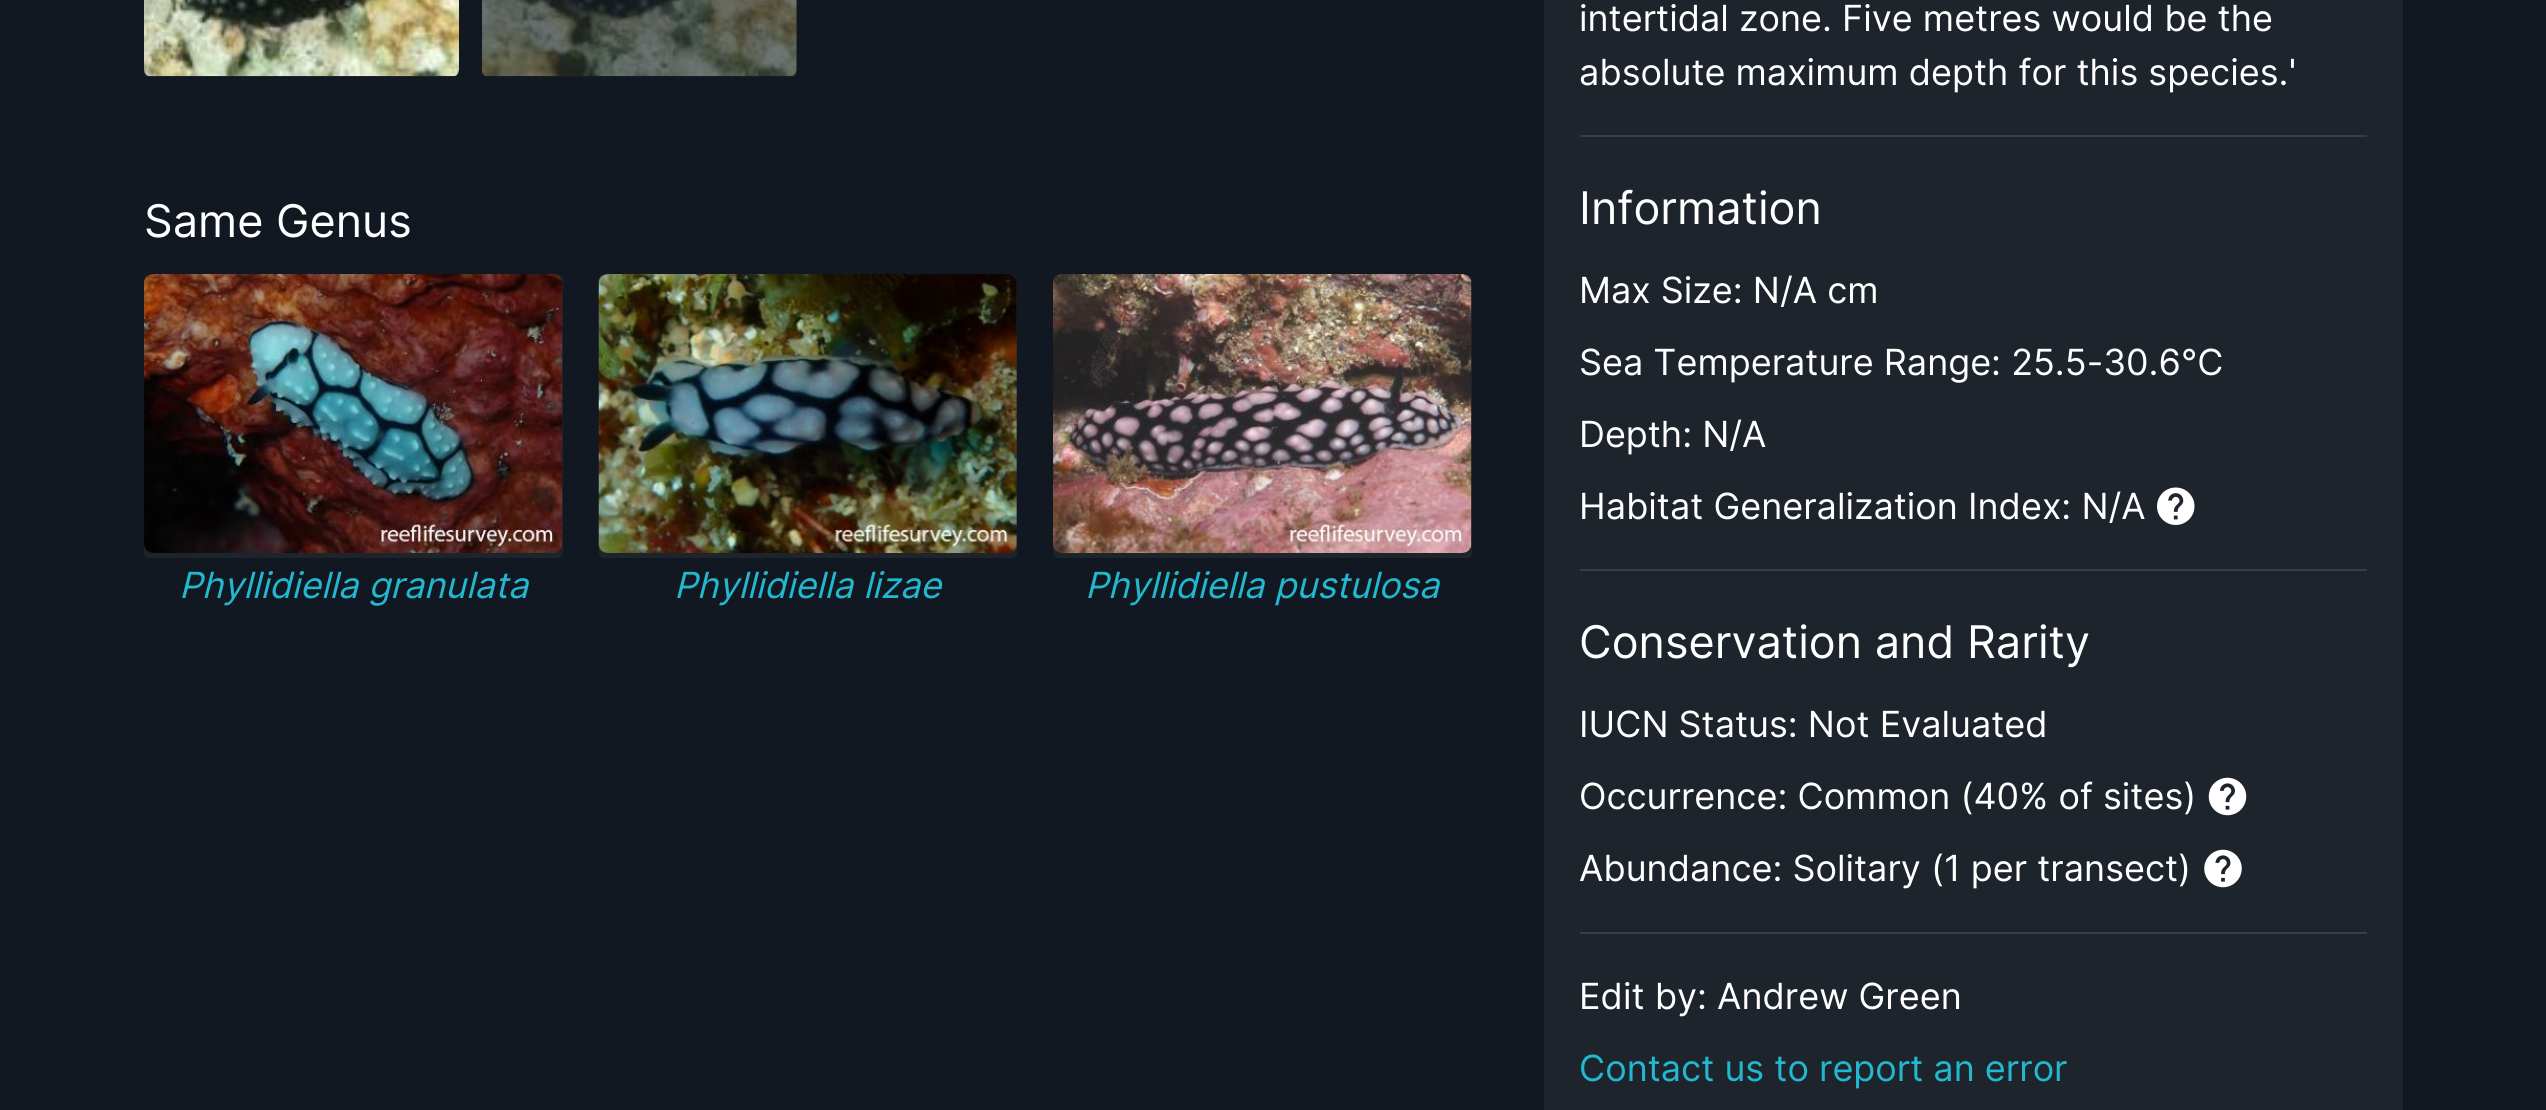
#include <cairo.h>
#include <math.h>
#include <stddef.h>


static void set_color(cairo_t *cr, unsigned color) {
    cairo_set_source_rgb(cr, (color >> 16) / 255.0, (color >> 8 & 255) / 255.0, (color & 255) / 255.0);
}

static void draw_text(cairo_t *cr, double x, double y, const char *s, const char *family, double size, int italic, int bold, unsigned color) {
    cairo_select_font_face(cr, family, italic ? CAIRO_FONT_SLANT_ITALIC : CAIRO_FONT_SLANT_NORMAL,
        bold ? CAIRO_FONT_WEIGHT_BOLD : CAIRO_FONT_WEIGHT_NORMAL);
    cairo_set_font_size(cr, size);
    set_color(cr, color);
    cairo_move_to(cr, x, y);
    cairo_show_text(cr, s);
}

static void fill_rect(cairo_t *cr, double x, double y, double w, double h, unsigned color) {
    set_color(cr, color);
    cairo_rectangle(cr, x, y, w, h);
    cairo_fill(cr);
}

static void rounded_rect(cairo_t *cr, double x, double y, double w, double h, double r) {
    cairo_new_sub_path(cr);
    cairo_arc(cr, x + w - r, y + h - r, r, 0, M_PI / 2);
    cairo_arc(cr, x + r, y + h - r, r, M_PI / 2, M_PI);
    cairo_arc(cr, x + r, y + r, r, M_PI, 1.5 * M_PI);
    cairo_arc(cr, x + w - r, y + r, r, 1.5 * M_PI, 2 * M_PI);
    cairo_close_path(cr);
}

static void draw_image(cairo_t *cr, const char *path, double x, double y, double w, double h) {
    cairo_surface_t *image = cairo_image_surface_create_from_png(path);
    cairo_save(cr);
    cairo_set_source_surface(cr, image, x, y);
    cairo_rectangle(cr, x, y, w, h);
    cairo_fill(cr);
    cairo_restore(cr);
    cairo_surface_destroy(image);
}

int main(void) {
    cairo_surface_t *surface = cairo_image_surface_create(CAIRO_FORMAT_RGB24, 2546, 1110);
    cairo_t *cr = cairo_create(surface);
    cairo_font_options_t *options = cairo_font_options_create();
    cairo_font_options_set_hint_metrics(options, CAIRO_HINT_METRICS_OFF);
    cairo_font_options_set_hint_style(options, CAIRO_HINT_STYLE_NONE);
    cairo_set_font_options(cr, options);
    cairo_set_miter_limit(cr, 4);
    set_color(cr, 0x111821);
    cairo_paint(cr);
    set_color(cr, 0x1D242C);
    rounded_rect(cr, 144, -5, 315, 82, 5);
    cairo_fill(cr);
    draw_image(cr, "assets/img1.png", 144, 0, 315, 76);
    set_color(cr, 0x161D25);
    rounded_rect(cr, 482, -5, 315, 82, 5);
    cairo_fill(cr);
    draw_image(cr, "assets/img2.png", 482, 0, 315, 76);
    fill_rect(cr, 1544, 0, 859, 1110, 0x1D242C);
    draw_text(cr, 1579, 31, "intertidal zone. Five metres would be the", "Inter", 36, 0, 0, 0xFFFFFF);
    draw_text(cr, 1579, 85, "absolute maximum depth for this species.'", "Inter", 36, 0, 0, 0xFFFFFF);
    fill_rect(cr, 1580, 135, 787, 2, 0x383E45);
    draw_text(cr, 1579, 224, "Information", "Inter", 45, 0, 0, 0xFFFFFF);
    draw_text(cr, 1579, 303, "Max Size: N/A cm", "Inter", 36, 0, 0, 0xFFFFFF);
    draw_text(cr, 1579, 375, "Sea Temperature Range: 25.5-30.6°C", "Inter", 36, 0, 0, 0xFFFFFF);
    draw_text(cr, 1579, 447, "Depth: N/A", "Inter", 36, 0, 0, 0xFFFFFF);
    draw_text(cr, 1579, 519, "Habitat Generalization Index: N/A", "Inter", 36, 0, 0, 0xFFFFFF);
    draw_image(cr, "assets/img3.png", 2157, 487, 38, 38);
    fill_rect(cr, 1580, 569, 787, 2, 0x383E45);
    draw_text(cr, 1579, 658, "Conservation and Rarity", "Inter", 45, 0, 0, 0xFFFFFF);
    draw_text(cr, 1579, 737, "IUCN Status: Not Evaluated", "Inter", 36, 0, 0, 0xFFFFFF);
    draw_text(cr, 1579, 809, "Occurrence: Common (40% of sites)", "Inter", 36, 0, 0, 0xFFFFFF);
    draw_image(cr, "assets/img4.png", 2208, 777, 39, 39);
    draw_text(cr, 1579, 881, "Abundance: Solitary (1 per transect)", "Inter", 36, 0, 0, 0xFFFFFF);
    draw_image(cr, "assets/img5.png", 2204, 849, 38, 39);
    fill_rect(cr, 1580, 932, 787, 2, 0x383E45);
    draw_text(cr, 1579, 1009, "Edit by: Andrew Green", "Inter", 36, 0, 0, 0xFFFFFF);
    draw_text(cr, 1579, 1081, "Contact us to report an error", "Inter", 36, 0, 0, 0x22B8CF);
    draw_text(cr, 144, 237, "Same Genus", "Inter", 45, 0, 0, 0xFFFFFF);
    set_color(cr, 0x1D242C);
    rounded_rect(cr, 144, 275, 419, 283, 5);
    cairo_fill(cr);
    draw_image(cr, "assets/img6.png", 144, 274, 419, 279);
    draw_text(cr, 179, 598, "Phyllidiella granulata", "Inter", 36, 1, 0, 0x22B8CF);
    set_color(cr, 0x1D242C);
    rounded_rect(cr, 599, 275, 418, 283, 5);
    cairo_fill(cr);
    draw_image(cr, "assets/img7.png", 598, 274, 419, 279);
    draw_text(cr, 674, 598, "Phyllidiella lizae", "Inter", 36, 1, 0, 0x22B8CF);
    set_color(cr, 0x1D242C);
    rounded_rect(cr, 1053, 275, 419, 283, 5);
    cairo_fill(cr);
    draw_image(cr, "assets/img8.png", 1053, 274, 419, 279);
    draw_text(cr, 1085, 598, "Phyllidiella pustulosa", "Inter", 36, 1, 0, 0x22B8CF);
    cairo_surface_write_to_png(surface, "output.png");
    cairo_font_options_destroy(options);
    cairo_destroy(cr);
    cairo_surface_destroy(surface);
    return 0;
}
